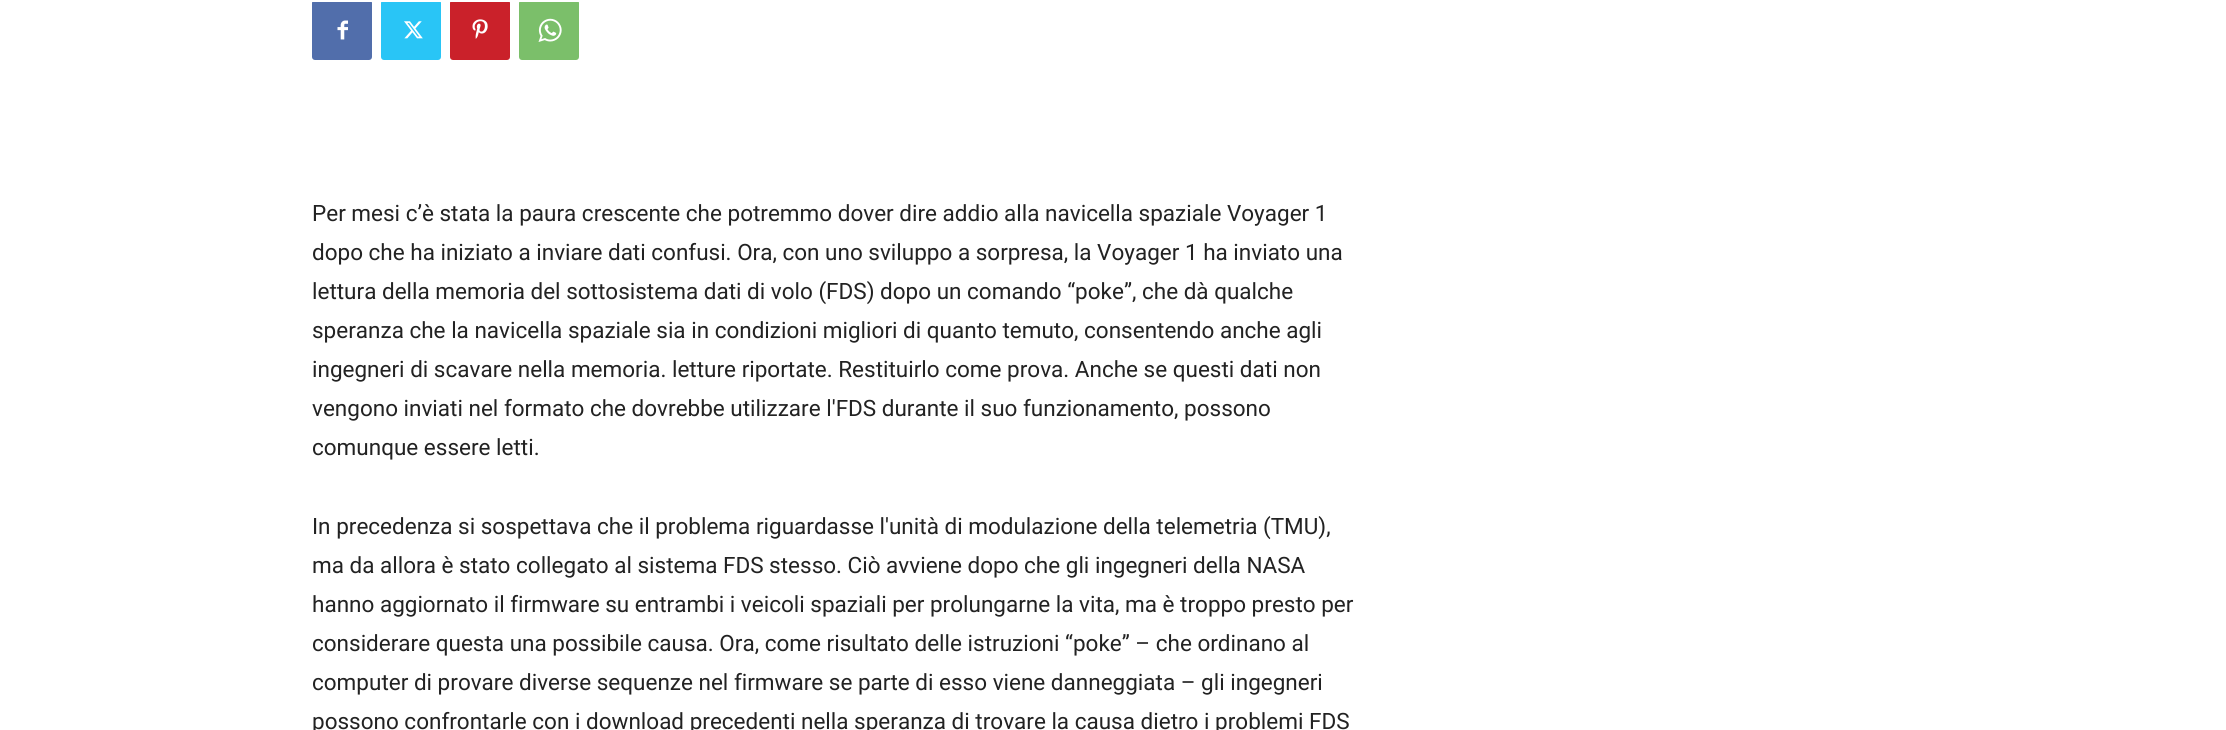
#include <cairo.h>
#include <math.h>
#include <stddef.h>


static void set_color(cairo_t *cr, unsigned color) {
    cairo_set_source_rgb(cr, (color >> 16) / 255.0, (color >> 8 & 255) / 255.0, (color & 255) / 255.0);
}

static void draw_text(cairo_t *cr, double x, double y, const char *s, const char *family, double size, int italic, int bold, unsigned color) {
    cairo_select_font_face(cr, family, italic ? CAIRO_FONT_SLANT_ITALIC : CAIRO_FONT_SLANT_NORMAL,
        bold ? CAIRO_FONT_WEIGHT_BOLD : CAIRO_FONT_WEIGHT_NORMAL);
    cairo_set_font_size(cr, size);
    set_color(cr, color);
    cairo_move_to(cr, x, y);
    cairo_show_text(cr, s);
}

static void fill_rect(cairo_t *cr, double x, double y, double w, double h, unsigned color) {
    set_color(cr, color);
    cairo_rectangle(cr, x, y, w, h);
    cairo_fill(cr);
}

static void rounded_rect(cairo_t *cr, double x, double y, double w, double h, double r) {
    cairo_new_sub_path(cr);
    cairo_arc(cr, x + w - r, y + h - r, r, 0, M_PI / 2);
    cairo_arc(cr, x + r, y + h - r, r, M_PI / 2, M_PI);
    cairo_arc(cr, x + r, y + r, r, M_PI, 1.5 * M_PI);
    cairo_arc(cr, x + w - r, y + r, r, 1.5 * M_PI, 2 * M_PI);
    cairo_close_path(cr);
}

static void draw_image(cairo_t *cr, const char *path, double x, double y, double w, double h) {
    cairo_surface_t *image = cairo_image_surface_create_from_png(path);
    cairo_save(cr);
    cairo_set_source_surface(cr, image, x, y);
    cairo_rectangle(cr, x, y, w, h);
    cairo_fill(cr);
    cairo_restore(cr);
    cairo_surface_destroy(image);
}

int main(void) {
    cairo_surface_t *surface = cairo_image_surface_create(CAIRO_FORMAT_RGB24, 2226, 730);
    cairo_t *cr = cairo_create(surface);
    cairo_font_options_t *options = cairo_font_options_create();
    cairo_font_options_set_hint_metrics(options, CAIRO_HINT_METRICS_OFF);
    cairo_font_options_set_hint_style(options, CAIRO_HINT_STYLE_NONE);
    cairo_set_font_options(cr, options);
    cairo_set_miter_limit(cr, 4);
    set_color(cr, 0xFFFFFF);
    cairo_paint(cr);
    set_color(cr, 0x516EAB);
    rounded_rect(cr, 312, 0, 60, 60, 3);
    cairo_fill(cr);
    set_color(cr, 0x29C5F6);
    rounded_rect(cr, 381, 0, 60, 60, 3);
    cairo_fill(cr);
    set_color(cr, 0xCA212A);
    rounded_rect(cr, 450, 0, 60, 60, 3);
    cairo_fill(cr);
    set_color(cr, 0x7BBF6A);
    rounded_rect(cr, 519, 0, 60, 60, 3);
    cairo_fill(cr);
    fill_rect(cr, 312, 0, 267, 2, 0xFFFFFF);
    draw_image(cr, "assets/img1.png", 337, 20, 11, 20);
    draw_image(cr, "assets/img2.png", 404, 21, 19, 18);
    draw_image(cr, "assets/img3.png", 472, 19, 16, 20);
    draw_image(cr, "assets/img4.png", 538, 18, 24, 24);
    draw_text(cr, 312, 221, "Per mesi c’è stata la paura crescente che potremmo dover dire addio alla navicella spaziale Voyager 1", "Roboto", 22.5, 0, 0, 0x222222);
    draw_text(cr, 312, 260, "dopo che ha iniziato a inviare dati confusi. Ora, con uno sviluppo a sorpresa, la Voyager 1 ha inviato una", "Roboto", 22.5, 0, 0, 0x222222);
    draw_text(cr, 312, 299, "lettura della memoria del sottosistema dati di volo (FDS) dopo un comando “poke”, che dà qualche", "Roboto", 22.5, 0, 0, 0x222222);
    draw_text(cr, 312, 338, "speranza che la navicella spaziale sia in condizioni migliori di quanto temuto, consentendo anche agli", "Roboto", 22.5, 0, 0, 0x222222);
    draw_text(cr, 312, 377, "ingegneri di scavare nella memoria. letture riportate. Restituirlo come prova. Anche se questi dati non", "Roboto", 22.5, 0, 0, 0x222222);
    draw_text(cr, 312, 416, "vengono inviati nel formato che dovrebbe utilizzare l'FDS durante il suo funzionamento, possono", "Roboto", 22.5, 0, 0, 0x222222);
    draw_text(cr, 312, 455, "comunque essere letti.", "Roboto", 22.5, 0, 0, 0x222222);
    draw_text(cr, 312, 534, "In precedenza si sospettava che il problema riguardasse l'unità di modulazione della telemetria (TMU),", "Roboto", 22.5, 0, 0, 0x222222);
    draw_text(cr, 312, 573, "ma da allora è stato collegato al sistema FDS stesso. Ciò avviene dopo che gli ingegneri della NASA", "Roboto", 22.5, 0, 0, 0x222222);
    draw_text(cr, 312, 612, "hanno aggiornato il firmware su entrambi i veicoli spaziali per prolungarne la vita, ma è troppo presto per", "Roboto", 22.5, 0, 0, 0x222222);
    draw_text(cr, 312, 651, "considerare questa una possibile causa. Ora, come risultato delle istruzioni “poke” – che ordinano al", "Roboto", 22.5, 0, 0, 0x222222);
    draw_text(cr, 312, 690, "computer di provare diverse sequenze nel firmware se parte di esso viene danneggiata – gli ingegneri", "Roboto", 22.5, 0, 0, 0x222222);
    draw_text(cr, 312, 729, "possono confrontarle con i download precedenti nella speranza di trovare la causa dietro i problemi FDS", "Roboto", 22.5, 0, 0, 0x222222);
    cairo_surface_write_to_png(surface, "output.png");
    cairo_font_options_destroy(options);
    cairo_destroy(cr);
    cairo_surface_destroy(surface);
    return 0;
}
